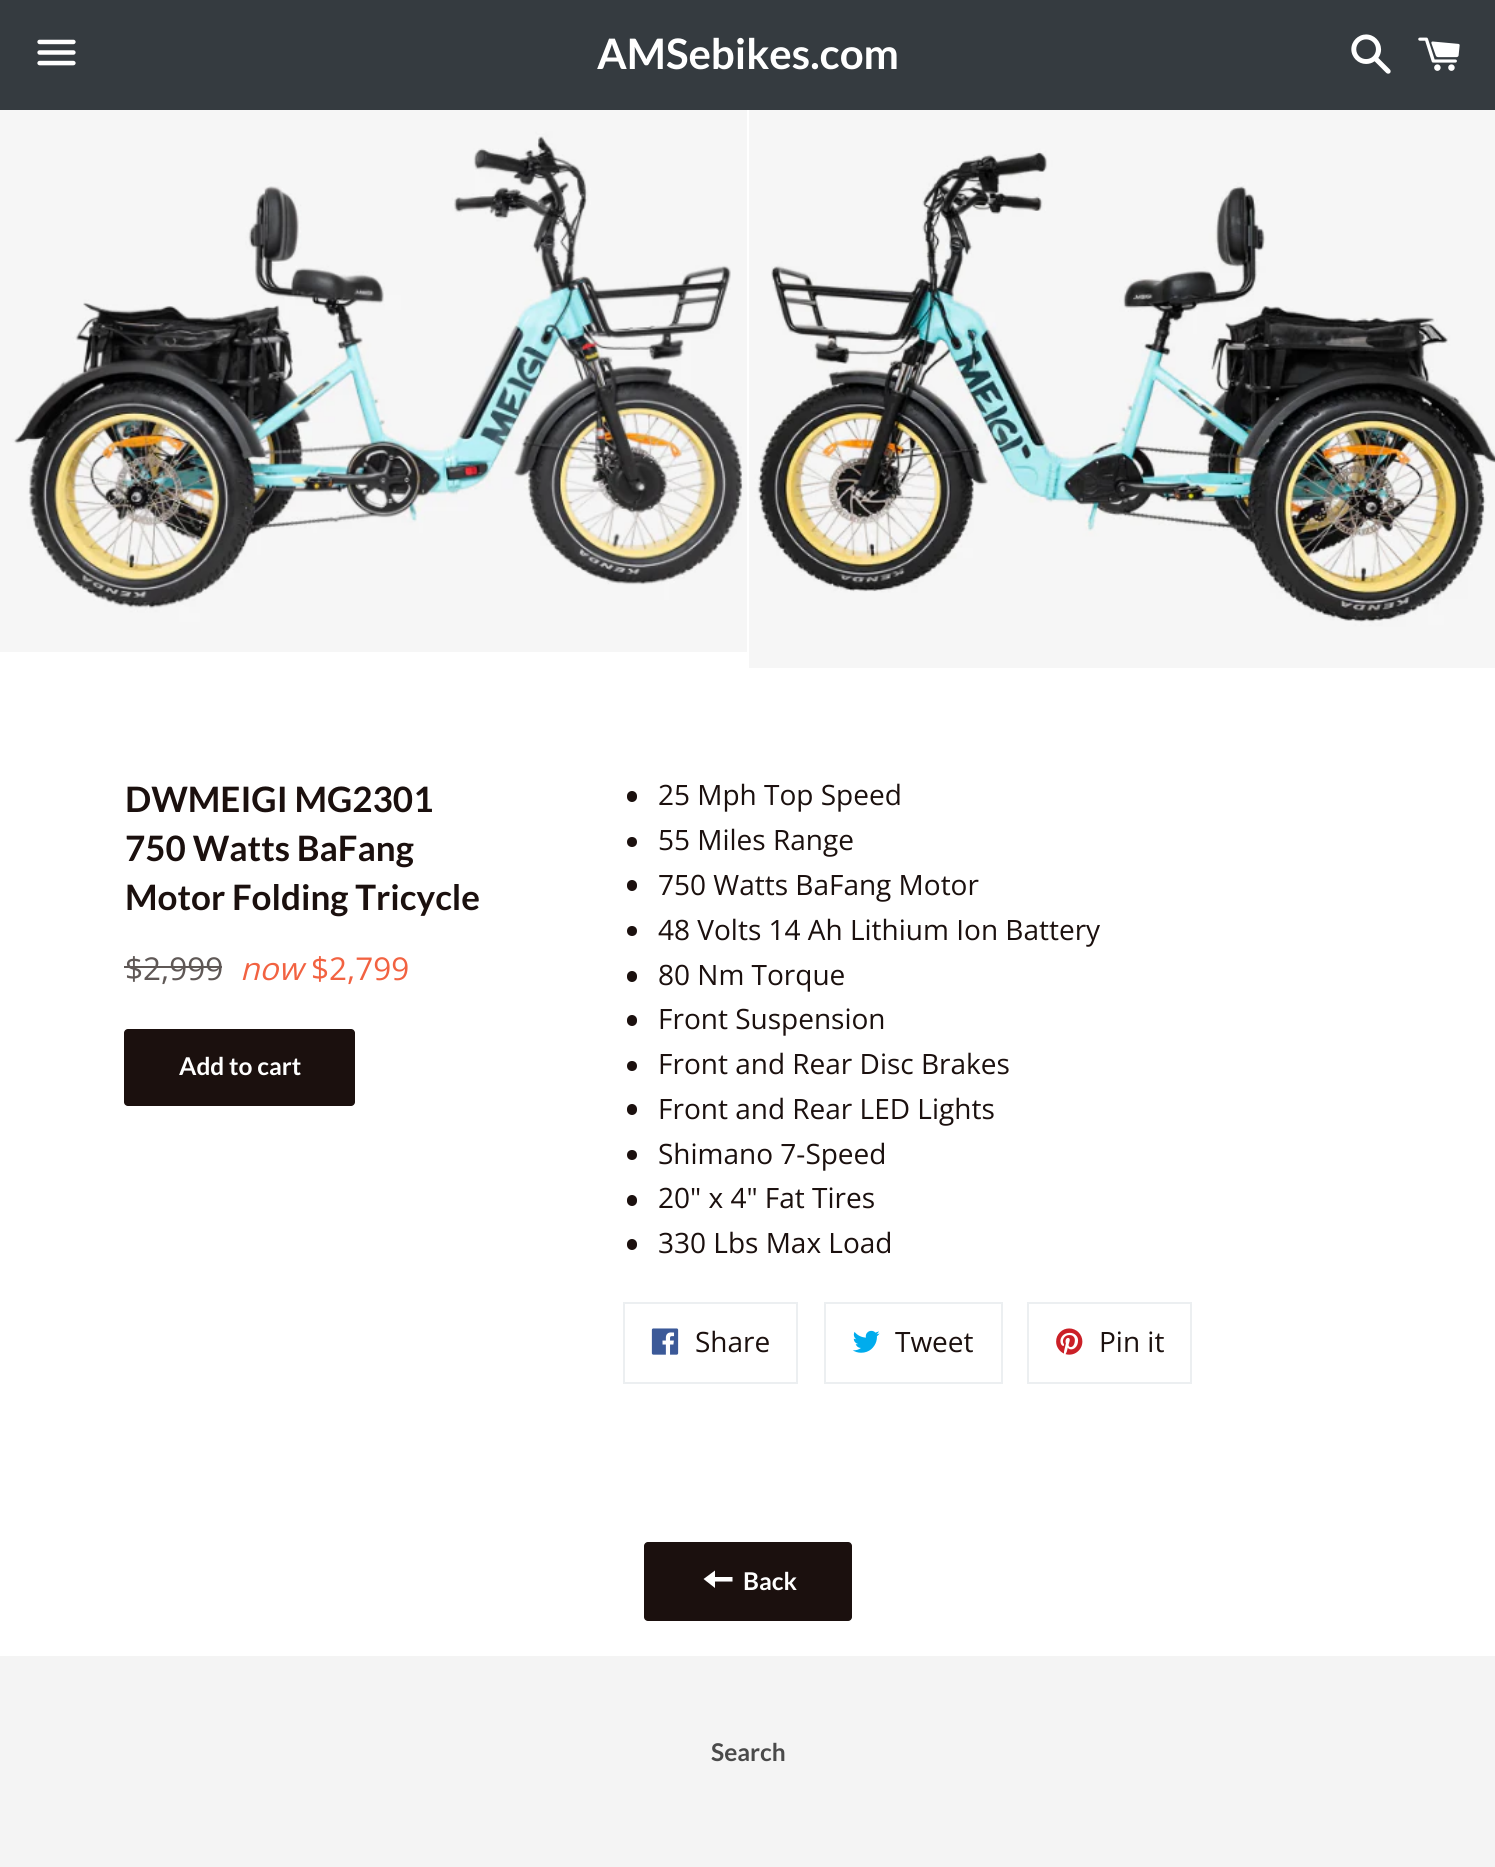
#include <cairo.h>
#include <math.h>
#include <stddef.h>


static void set_color(cairo_t *cr, unsigned color) {
    cairo_set_source_rgb(cr, (color >> 16) / 255.0, (color >> 8 & 255) / 255.0, (color & 255) / 255.0);
}

static void draw_text(cairo_t *cr, double x, double y, const char *s, const char *family, double size, int italic, int bold, unsigned color) {
    cairo_select_font_face(cr, family, italic ? CAIRO_FONT_SLANT_ITALIC : CAIRO_FONT_SLANT_NORMAL,
        bold ? CAIRO_FONT_WEIGHT_BOLD : CAIRO_FONT_WEIGHT_NORMAL);
    cairo_set_font_size(cr, size);
    set_color(cr, color);
    cairo_move_to(cr, x, y);
    cairo_show_text(cr, s);
}

static void fill_rect(cairo_t *cr, double x, double y, double w, double h, unsigned color) {
    set_color(cr, color);
    cairo_rectangle(cr, x, y, w, h);
    cairo_fill(cr);
}

static void rounded_rect(cairo_t *cr, double x, double y, double w, double h, double r) {
    cairo_new_sub_path(cr);
    cairo_arc(cr, x + w - r, y + h - r, r, 0, M_PI / 2);
    cairo_arc(cr, x + r, y + h - r, r, M_PI / 2, M_PI);
    cairo_arc(cr, x + r, y + r, r, M_PI, 1.5 * M_PI);
    cairo_arc(cr, x + w - r, y + r, r, 1.5 * M_PI, 2 * M_PI);
    cairo_close_path(cr);
}

static void draw_image(cairo_t *cr, const char *path, double x, double y, double w, double h) {
    cairo_surface_t *image = cairo_image_surface_create_from_png(path);
    cairo_save(cr);
    cairo_set_source_surface(cr, image, x, y);
    cairo_rectangle(cr, x, y, w, h);
    cairo_fill(cr);
    cairo_restore(cr);
    cairo_surface_destroy(image);
}

int main(void) {
    cairo_surface_t *surface = cairo_image_surface_create(CAIRO_FORMAT_RGB24, 1495, 1867);
    cairo_t *cr = cairo_create(surface);
    cairo_font_options_t *options = cairo_font_options_create();
    cairo_font_options_set_hint_metrics(options, CAIRO_HINT_METRICS_OFF);
    cairo_font_options_set_hint_style(options, CAIRO_HINT_STYLE_NONE);
    cairo_set_font_options(cr, options);
    cairo_set_miter_limit(cr, 4);
    set_color(cr, 0xFFFFFF);
    cairo_paint(cr);
    fill_rect(cr, 0, 0, 1495, 110, 0x353B40);
    draw_image(cr, "assets/img1.png", 37, 39, 39, 27);
    draw_text(cr, 597, 69, "AMSebikes.com", "Lato", 42, 0, 1, 0xFFFFFF);
    draw_image(cr, "assets/img2.png", 1351, 34, 40, 40);
    draw_image(cr, "assets/img3.png", 1418, 37, 42, 34);
    draw_image(cr, "assets/img4.png", 0, 110, 747, 542);
    draw_image(cr, "assets/img5.png", 749, 110, 746, 558);
    draw_text(cr, 125, 812, "DWMEIGI MG2301", "Lato", 35, 0, 1, 0x1B100E);
    draw_text(cr, 125, 861, "750 Watts BaFang", "Lato", 35, 0, 1, 0x1B100E);
    draw_text(cr, 125, 910, "Motor Folding Tricycle", "Lato", 35, 0, 1, 0x1B100E);
    draw_text(cr, 125, 980, "$2,999", "Open Sans", 31.5, 0, 0, 0x5F5856);
    fill_rect(cr, 124, 966, 98, 2, 0x5F5856);
    draw_text(cr, 240, 980, "now", "Open Sans", 31.5, 1, 0, 0xF26241);
    draw_text(cr, 311, 980, "$2,799", "Open Sans", 31.5, 0, 0, 0xF26241);
    set_color(cr, 0x1B100E);
    rounded_rect(cr, 124, 1029, 231, 77, 4);
    cairo_fill(cr);
    draw_text(cr, 179, 1075, "Add to cart", "Lato", 24.5, 0, 1, 0xFFFFFF);
    set_color(cr, 0x1B100E);
    rounded_rect(cr, 627, 791, 10, 11, 5);
    cairo_fill(cr);
    draw_text(cr, 658, 805, "25 Mph Top Speed", "Open Sans", 28, 0, 0, 0x1B100E);
    cairo_new_path(cr);
    cairo_arc(cr, 632, 842, 5, 0, 2 * M_PI);
    cairo_fill(cr);
    draw_text(cr, 658, 850, "55 Miles Range", "Open Sans", 28, 0, 0, 0x1B100E);
    rounded_rect(cr, 627, 880, 10, 11, 5);
    cairo_fill(cr);
    draw_text(cr, 658, 895, "750 Watts BaFang Motor", "Open Sans", 28, 0, 0, 0x1B100E);
    cairo_new_path(cr);
    cairo_arc(cr, 632, 931, 5, 0, 2 * M_PI);
    cairo_fill(cr);
    draw_text(cr, 658, 940, "48 Volts 14 Ah Lithium Ion Battery", "Open Sans", 28, 0, 0, 0x1B100E);
    rounded_rect(cr, 627, 971, 10, 11, 5);
    cairo_fill(cr);
    draw_text(cr, 658, 985, "80 Nm Torque", "Open Sans", 28, 0, 0, 0x1B100E);
    rounded_rect(cr, 627, 1015, 10, 11, 5);
    cairo_fill(cr);
    draw_text(cr, 658, 1029, "Front Suspension", "Open Sans", 28, 0, 0, 0x1B100E);
    cairo_new_path(cr);
    cairo_arc(cr, 632, 1066, 5, 0, 2 * M_PI);
    cairo_fill(cr);
    draw_text(cr, 658, 1074, "Front and Rear Disc Brakes", "Open Sans", 28, 0, 0, 0x1B100E);
    rounded_rect(cr, 627, 1104, 10, 11, 5);
    cairo_fill(cr);
    draw_text(cr, 658, 1119, "Front and Rear LED Lights", "Open Sans", 28, 0, 0, 0x1B100E);
    cairo_new_path(cr);
    cairo_arc(cr, 632, 1155, 5, 0, 2 * M_PI);
    cairo_fill(cr);
    draw_text(cr, 658, 1164, "Shimano 7-Speed", "Open Sans", 28, 0, 0, 0x1B100E);
    rounded_rect(cr, 627, 1195, 10, 11, 5);
    cairo_fill(cr);
    draw_text(cr, 658, 1208, "20\" x 4\" Fat Tires", "Open Sans", 28, 0, 0, 0x1B100E);
    rounded_rect(cr, 627, 1239, 10, 11, 5);
    cairo_fill(cr);
    draw_text(cr, 658, 1253, "330 Lbs Max Load", "Open Sans", 28, 0, 0, 0x1B100E);
    cairo_rectangle(cr, 624, 1303, 173, 80);
    set_color(cr, 0xECEFF1);
    cairo_stroke(cr);
    draw_image(cr, "assets/img6.png", 651, 1328, 28, 27);
    draw_text(cr, 695, 1352, "Share", "Open Sans", 28, 0, 0, 0x1B100E);
    cairo_rectangle(cr, 825, 1303, 177, 80);
    set_color(cr, 0xECEFF1);
    cairo_stroke(cr);
    draw_image(cr, "assets/img7.png", 852, 1330, 28, 23);
    draw_text(cr, 895, 1352, "Tweet", "Open Sans", 28, 0, 0, 0x1B100E);
    cairo_rectangle(cr, 1028, 1303, 163, 80);
    set_color(cr, 0xECEFF1);
    cairo_stroke(cr);
    draw_image(cr, "assets/img8.png", 1056, 1328, 27, 27);
    draw_text(cr, 1099, 1352, "Pin it", "Open Sans", 28, 0, 0, 0x1B100E);
    rounded_rect(cr, 644, 1542, 208, 79, 4);
    cairo_fill(cr);
    set_color(cr, 0xFFFFFF);
    cairo_new_path(cr);
    cairo_move_to(cr, 715, 1577);
    cairo_line_to(cr, 715, 1570.5);
    cairo_line_to(cr, 703.5, 1579);
    cairo_line_to(cr, 715, 1588);
    cairo_line_to(cr, 715, 1581.5);
    cairo_line_to(cr, 732.5, 1581.5);
    cairo_line_to(cr, 732.5, 1577);
    cairo_close_path(cr);
    cairo_fill(cr);
    draw_text(cr, 743, 1590, "Back", "Lato", 24.5, 0, 1, 0xFFFFFF);
    fill_rect(cr, 0, 1656, 1495, 211, 0xF4F4F4);
    draw_text(cr, 711, 1761, "Search", "Lato", 24.5, 0, 1, 0x4A4A4A);
    cairo_surface_write_to_png(surface, "output.png");
    cairo_font_options_destroy(options);
    cairo_destroy(cr);
    cairo_surface_destroy(surface);
    return 0;
}
